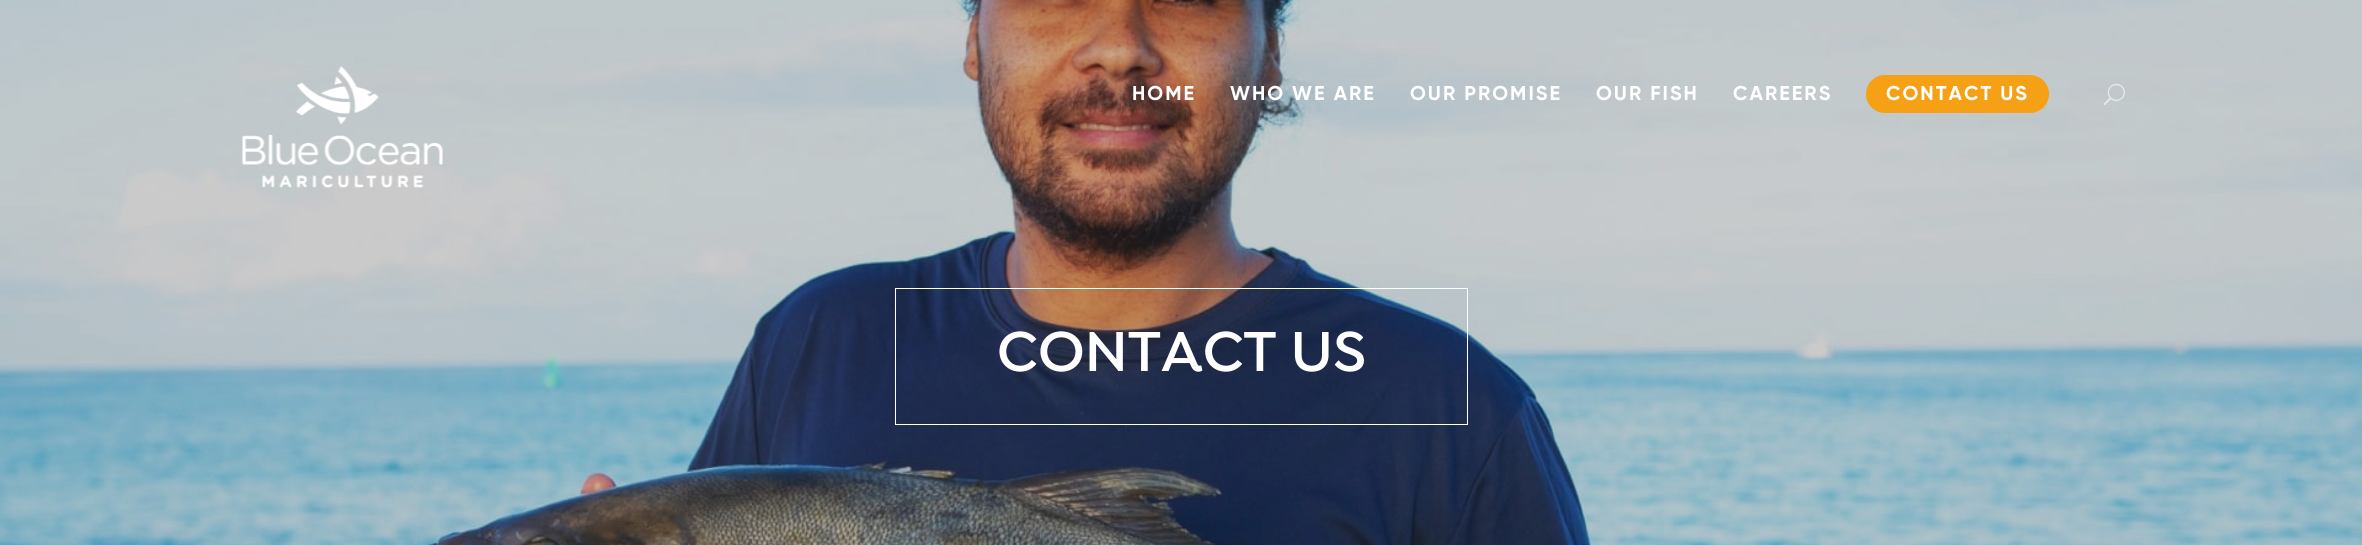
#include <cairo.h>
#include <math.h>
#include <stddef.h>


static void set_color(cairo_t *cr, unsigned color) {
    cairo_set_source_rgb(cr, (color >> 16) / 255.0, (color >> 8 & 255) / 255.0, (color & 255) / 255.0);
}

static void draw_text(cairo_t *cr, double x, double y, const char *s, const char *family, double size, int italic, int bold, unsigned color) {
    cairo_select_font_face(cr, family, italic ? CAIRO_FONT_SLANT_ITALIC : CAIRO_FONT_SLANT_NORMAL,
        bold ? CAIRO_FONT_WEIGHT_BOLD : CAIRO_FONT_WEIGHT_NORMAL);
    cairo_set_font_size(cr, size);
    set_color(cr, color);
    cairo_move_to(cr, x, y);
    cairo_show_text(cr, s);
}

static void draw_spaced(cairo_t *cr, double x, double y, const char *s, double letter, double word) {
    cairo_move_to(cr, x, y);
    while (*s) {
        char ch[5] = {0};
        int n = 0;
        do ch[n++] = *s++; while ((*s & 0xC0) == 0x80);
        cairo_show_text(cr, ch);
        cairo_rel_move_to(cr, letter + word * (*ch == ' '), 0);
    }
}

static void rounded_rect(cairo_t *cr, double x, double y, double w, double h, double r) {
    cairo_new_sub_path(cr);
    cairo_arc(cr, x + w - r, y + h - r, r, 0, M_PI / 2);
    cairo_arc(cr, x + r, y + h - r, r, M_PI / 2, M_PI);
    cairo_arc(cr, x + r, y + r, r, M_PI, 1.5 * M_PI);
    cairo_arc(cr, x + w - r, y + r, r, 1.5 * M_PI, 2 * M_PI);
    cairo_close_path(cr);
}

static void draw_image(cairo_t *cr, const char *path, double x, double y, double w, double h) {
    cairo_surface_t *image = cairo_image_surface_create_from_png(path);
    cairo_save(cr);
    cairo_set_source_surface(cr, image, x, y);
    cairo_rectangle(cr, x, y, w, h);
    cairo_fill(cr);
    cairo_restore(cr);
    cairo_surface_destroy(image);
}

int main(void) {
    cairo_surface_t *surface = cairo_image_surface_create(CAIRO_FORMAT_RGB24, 2362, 545);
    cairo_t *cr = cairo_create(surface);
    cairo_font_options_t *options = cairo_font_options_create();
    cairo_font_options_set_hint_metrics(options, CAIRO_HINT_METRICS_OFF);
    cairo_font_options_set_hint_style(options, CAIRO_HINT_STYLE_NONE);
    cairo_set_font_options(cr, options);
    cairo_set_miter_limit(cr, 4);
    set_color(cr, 0xFFFFFF);
    cairo_paint(cr);
    draw_image(cr, "assets/img3.png", 0, 0, 2362, 545);
    draw_image(cr, "assets/img1.png", 242, 66, 201, 122);
    cairo_select_font_face(cr, "Gilroy", CAIRO_FONT_SLANT_NORMAL, CAIRO_FONT_WEIGHT_BOLD);
    cairo_set_font_size(cr, 20);
    set_color(cr, 0xFFFFFF);
    draw_spaced(cr, 1132, 100, "HOME", 2, 0);
    draw_spaced(cr, 1230, 100, "WHO WE ARE", 2, 0);
    draw_spaced(cr, 1410, 100, "OUR PROMISE", 2, 0);
    draw_spaced(cr, 1596, 100, "OUR FISH", 2, 0);
    draw_spaced(cr, 1733, 100, "CAREERS", 2, 0);
    set_color(cr, 0xF6A016);
    rounded_rect(cr, 1866, 75, 183, 38, 19);
    cairo_fill(cr);
    set_color(cr, 0xFFFFFF);
    draw_spaced(cr, 1886, 100, "CONTACT US", 2, 0);
    draw_image(cr, "assets/img2.png", 2103, 83, 22, 22);
    cairo_rectangle(cr, 895.5, 288.5, 572, 136);
    cairo_set_line_width(cr, 1);
    cairo_stroke(cr);
    draw_text(cr, 997, 371, "CONTACT US", "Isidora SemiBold", 60, 0, 0, 0xFFFFFF);
    cairo_surface_write_to_png(surface, "output.png");
    cairo_font_options_destroy(options);
    cairo_destroy(cr);
    cairo_surface_destroy(surface);
    return 0;
}
